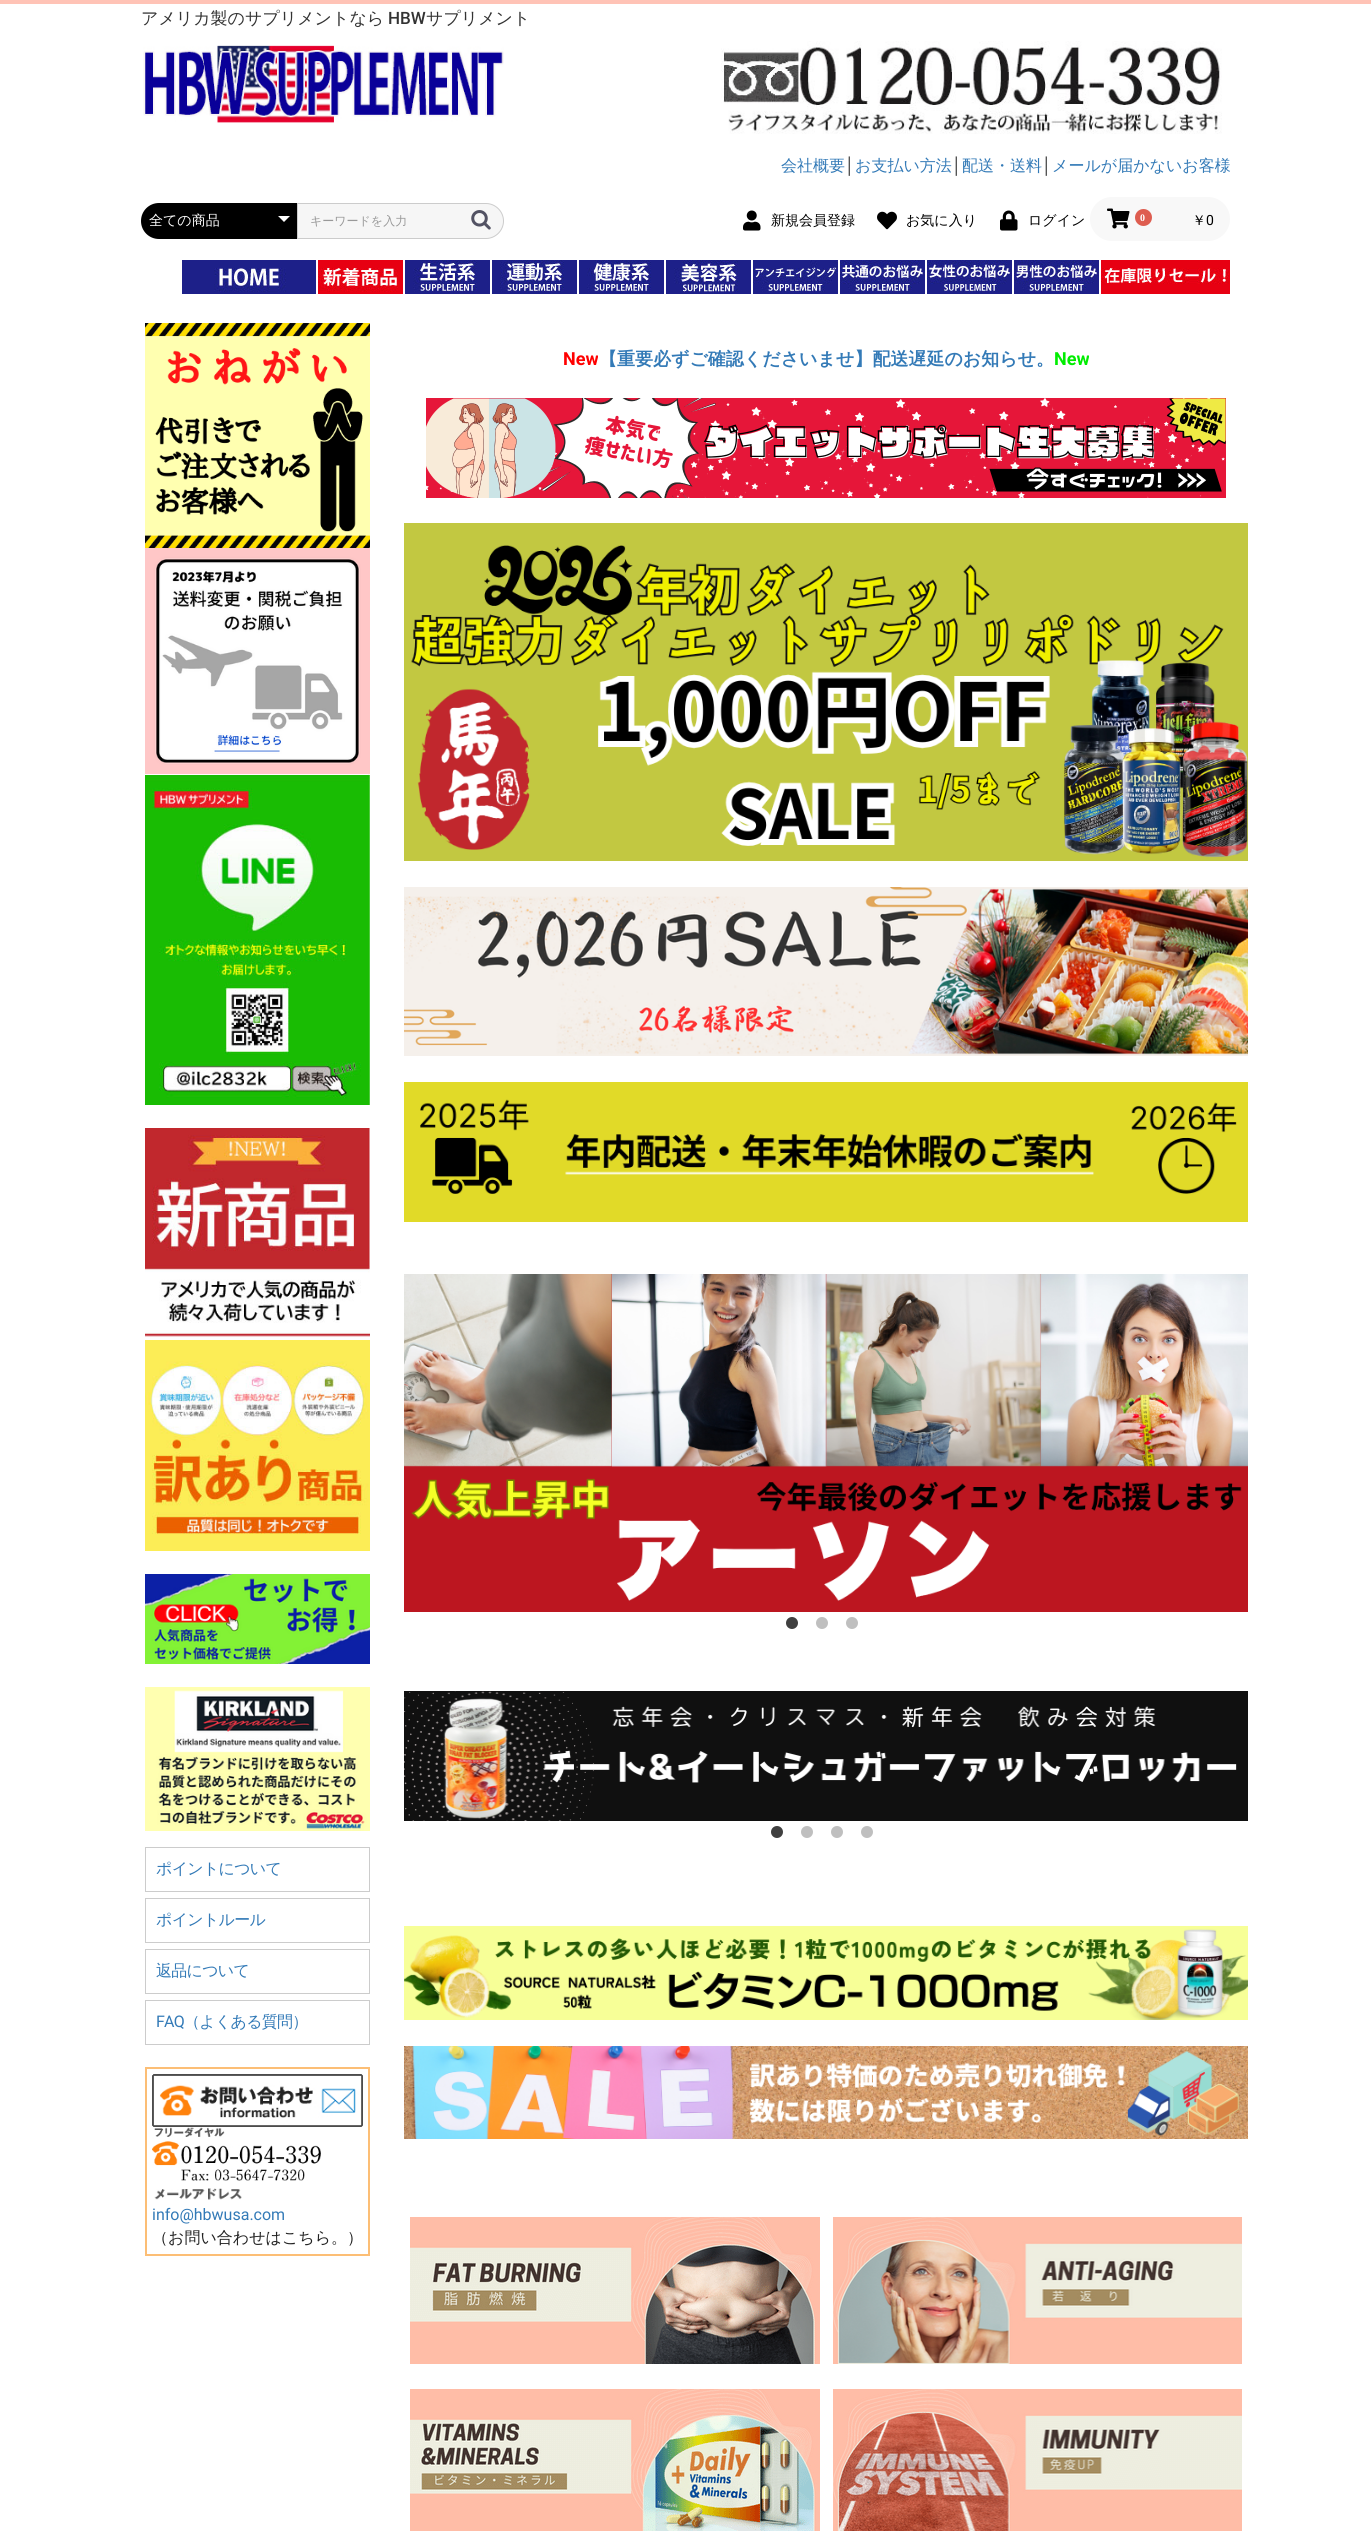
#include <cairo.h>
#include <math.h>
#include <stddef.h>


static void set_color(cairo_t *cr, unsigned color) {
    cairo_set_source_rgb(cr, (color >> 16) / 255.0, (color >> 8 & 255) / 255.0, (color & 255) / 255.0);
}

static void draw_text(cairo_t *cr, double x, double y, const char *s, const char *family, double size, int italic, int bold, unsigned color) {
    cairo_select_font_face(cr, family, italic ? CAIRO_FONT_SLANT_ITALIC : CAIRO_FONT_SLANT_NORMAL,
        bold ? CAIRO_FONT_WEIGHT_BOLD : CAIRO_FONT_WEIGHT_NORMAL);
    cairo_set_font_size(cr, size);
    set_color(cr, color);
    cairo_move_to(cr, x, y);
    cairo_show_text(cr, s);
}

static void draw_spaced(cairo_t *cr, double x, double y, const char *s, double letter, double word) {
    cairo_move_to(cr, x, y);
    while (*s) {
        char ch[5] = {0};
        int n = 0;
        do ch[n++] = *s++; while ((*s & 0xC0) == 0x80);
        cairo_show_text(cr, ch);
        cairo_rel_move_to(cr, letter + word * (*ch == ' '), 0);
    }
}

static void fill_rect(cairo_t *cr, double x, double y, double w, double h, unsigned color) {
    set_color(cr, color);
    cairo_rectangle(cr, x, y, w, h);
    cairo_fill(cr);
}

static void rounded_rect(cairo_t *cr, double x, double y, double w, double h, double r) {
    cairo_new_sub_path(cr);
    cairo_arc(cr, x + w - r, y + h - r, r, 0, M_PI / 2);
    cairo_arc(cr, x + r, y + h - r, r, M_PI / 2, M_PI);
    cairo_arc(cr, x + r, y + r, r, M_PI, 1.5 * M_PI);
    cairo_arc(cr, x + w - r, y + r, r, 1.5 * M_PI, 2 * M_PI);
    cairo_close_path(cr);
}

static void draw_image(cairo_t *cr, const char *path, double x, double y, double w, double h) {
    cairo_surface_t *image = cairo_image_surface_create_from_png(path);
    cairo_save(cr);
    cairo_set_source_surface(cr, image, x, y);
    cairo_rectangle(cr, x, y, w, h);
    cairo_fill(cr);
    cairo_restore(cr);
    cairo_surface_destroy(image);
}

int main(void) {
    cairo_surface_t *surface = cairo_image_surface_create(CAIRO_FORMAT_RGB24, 1371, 2531);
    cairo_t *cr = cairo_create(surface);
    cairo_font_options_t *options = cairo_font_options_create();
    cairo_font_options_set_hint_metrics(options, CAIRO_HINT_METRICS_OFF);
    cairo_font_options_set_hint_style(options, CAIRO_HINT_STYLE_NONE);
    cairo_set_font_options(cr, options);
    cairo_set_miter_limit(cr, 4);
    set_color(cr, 0xFFFFFF);
    cairo_paint(cr);
    fill_rect(cr, 0, 0, 1371, 4, 0xFFC3B6);
    draw_text(cr, 141, 24, "アメリカ製のサプリメントなら", "WenQuanYi Zen Hei Medium", 17, 0, 0, 0x333333);
    draw_text(cr, 388, 24, "HBW", "Roboto Medium", 17, 0, 0, 0x333333);
    draw_text(cr, 426, 24, "サプリメント", "WenQuanYi Zen Hei Medium", 17, 0, 0, 0x333333);
    draw_image(cr, "assets/img1.png", 143, 45, 361, 78);
    draw_image(cr, "assets/img2.png", 721, 41, 501, 93);
    draw_text(cr, 781, 171, "会社概要", "WenQuanYi Zen Hei Medium", 16, 0, 0, 0x337AB7);
    draw_text(cr, 845, 171, "│", "Liberation Sans", 16, 0, 0, 0x333333);
    draw_text(cr, 855, 171, "お支払い方法", "WenQuanYi Zen Hei Medium", 16, 0, 0, 0x337AB7);
    draw_text(cr, 952, 171, "│", "Liberation Sans", 16, 0, 0, 0x333333);
    draw_text(cr, 962, 171, "配送・送料", "WenQuanYi Zen Hei Medium", 16, 0, 0, 0x337AB7);
    draw_text(cr, 1042, 171, "│", "Liberation Sans", 16, 0, 0, 0x333333);
    draw_text(cr, 1052, 171, "メールが届かないお客様", "WenQuanYi Zen Hei Medium", 16, 0, 0, 0x337AB7);
    set_color(cr, 0x000000);
    cairo_new_path(cr);
    cairo_move_to(cr, 159, 203);
    cairo_line_to(cr, 297, 203);
    cairo_line_to(cr, 297, 239);
    cairo_line_to(cr, 159, 239);
    cairo_curve_to(cr, 149, 239, 141, 231, 141, 221);
    cairo_curve_to(cr, 141, 211, 149, 203, 159, 203);
    cairo_close_path(cr);
    cairo_fill(cr);
    draw_text(cr, 149, 225, "全ての商品", "WenQuanYi Zen Hei Medium", 14, 0, 0, 0xFFFFFF);
    cairo_new_path(cr);
    cairo_move_to(cr, 278, 216);
    cairo_line_to(cr, 290, 216);
    cairo_line_to(cr, 284, 222);
    cairo_close_path(cr);
    cairo_fill(cr);
    set_color(cr, 0xF6F6F6);
    cairo_new_path(cr);
    cairo_move_to(cr, 297.5, 203.5);
    cairo_line_to(cr, 486, 203.5);
    cairo_curve_to(cr, 495.5, 203.5, 503.5, 211.5, 503.5, 221);
    cairo_curve_to(cr, 503.5, 230.5, 495.5, 238.5, 486, 238.5);
    cairo_line_to(cr, 297.5, 238.5);
    cairo_close_path(cr);
    cairo_fill_preserve(cr);
    set_color(cr, 0xCCCCCC);
    cairo_set_line_width(cr, 1);
    cairo_stroke(cr);
    draw_text(cr, 310, 225, "キーワードを入力", "WenQuanYi Zen Hei Medium", 12, 0, 0, 0x999999);
    draw_image(cr, "assets/img3.png", 471, 210, 20, 20);
    draw_image(cr, "assets/img4.png", 743, 210, 18, 21);
    draw_text(cr, 771, 225, "新規会員登録", "WenQuanYi Zen Hei Medium", 14, 0, 0, 0x000000);
    draw_image(cr, "assets/img5.png", 877, 211, 20, 19);
    draw_text(cr, 906, 225, "お気に入り", "WenQuanYi Zen Hei Medium", 14, 0, 0, 0x000000);
    draw_image(cr, "assets/img6.png", 1000, 210, 18, 21);
    draw_text(cr, 1028, 225, "ログイン", "WenQuanYi Zen Hei Medium", 14, 0, 0, 0x000000);
    set_color(cr, 0xF8F8F8);
    rounded_rect(cr, 1090, 197, 140, 44, 22);
    cairo_fill(cr);
    draw_image(cr, "assets/img7.png", 1107, 208, 23, 21);
    set_color(cr, 0xDE5D50);
    cairo_arc(cr, 1143.5, 217.5, 8.5, 0, 2 * M_PI);
    cairo_fill(cr);
    draw_text(cr, 1140, 221, "0", "Liberation Serif", 10, 0, 1, 0xFFFFFF);
    draw_text(cr, 1192, 225, "￥", "WenQuanYi Zen Hei Medium", 14, 0, 0, 0x000000);
    draw_text(cr, 1206, 225, "0", "Roboto", 14, 0, 0, 0x000000);
    draw_image(cr, "assets/img8.png", 182, 260, 134, 34);
    draw_image(cr, "assets/img9.png", 318, 260, 85, 34);
    draw_image(cr, "assets/img10.png", 405, 260, 85, 34);
    draw_image(cr, "assets/img11.png", 492, 260, 85, 34);
    draw_image(cr, "assets/img12.png", 579, 260, 85, 34);
    draw_image(cr, "assets/img13.png", 666, 260, 85, 34);
    draw_image(cr, "assets/img14.png", 753, 260, 85, 34);
    draw_image(cr, "assets/img15.png", 840, 260, 85, 34);
    draw_image(cr, "assets/img16.png", 927, 260, 85, 34);
    draw_image(cr, "assets/img17.png", 1014, 260, 85, 34);
    draw_image(cr, "assets/img18.png", 1101, 260, 129, 34);
    draw_text(cr, 563, 365, "New", "Roboto", 18, 0, 1, 0xFF0000);
    draw_text(cr, 599, 365, "【重要必ずご確認くださいませ】配送遅延のお知らせ。", "WenQuanYi Zen Hei", 18, 0, 1, 0x337AB7);
    draw_text(cr, 1054, 365, "New", "Roboto", 18, 0, 1, 0x00ED00);
    draw_image(cr, "assets/img19.png", 426, 398, 800, 100);
    draw_image(cr, "assets/img20.png", 404, 523, 844, 338);
    draw_image(cr, "assets/img21.png", 404, 887, 844, 169);
    draw_image(cr, "assets/img22.png", 404, 1082, 844, 140);
    draw_image(cr, "assets/img23.png", 404, 1274, 844, 338);
    set_color(cr, 0x404040);
    cairo_arc(cr, 792, 1623, 6, 0, 2 * M_PI);
    cairo_fill(cr);
    set_color(cr, 0xBFBFBF);
    cairo_arc(cr, 822, 1623, 6, 0, 2 * M_PI);
    cairo_fill(cr);
    cairo_arc(cr, 852, 1623, 6, 0, 2 * M_PI);
    cairo_fill(cr);
    draw_image(cr, "assets/img24.png", 404, 1691, 844, 130);
    set_color(cr, 0x404040);
    cairo_arc(cr, 777, 1832, 6, 0, 2 * M_PI);
    cairo_fill(cr);
    set_color(cr, 0xBFBFBF);
    cairo_arc(cr, 807, 1832, 6, 0, 2 * M_PI);
    cairo_fill(cr);
    cairo_arc(cr, 837, 1832, 6, 0, 2 * M_PI);
    cairo_fill(cr);
    cairo_arc(cr, 867, 1832, 6, 0, 2 * M_PI);
    cairo_fill(cr);
    draw_image(cr, "assets/img25.png", 404, 1926, 844, 94);
    draw_image(cr, "assets/img26.png", 404, 2046, 844, 93);
    draw_image(cr, "assets/img27.png", 410, 2217, 410, 147);
    draw_image(cr, "assets/img28.png", 833, 2217, 409, 147);
    draw_image(cr, "assets/img29.png", 410, 2389, 410, 142);
    draw_image(cr, "assets/img30.png", 833, 2389, 409, 142);
    draw_image(cr, "assets/img31.png", 145, 323, 225, 225);
    draw_image(cr, "assets/img32.png", 145, 548, 225, 226);
    draw_image(cr, "assets/img33.png", 145, 774, 225, 331);
    draw_image(cr, "assets/img34.png", 145, 1128, 225, 209);
    draw_image(cr, "assets/img35.png", 145, 1340, 225, 211);
    draw_image(cr, "assets/img36.png", 145, 1574, 225, 90);
    draw_image(cr, "assets/img37.png", 145, 1687, 225, 144);
    cairo_rectangle(cr, 145.5, 1847.5, 224, 44);
    set_color(cr, 0xCCCCCC);
    cairo_stroke(cr);
    cairo_select_font_face(cr, "WenQuanYi Zen Hei Medium", CAIRO_FONT_SLANT_NORMAL, CAIRO_FONT_WEIGHT_NORMAL);
    cairo_set_font_size(cr, 16);
    set_color(cr, 0x337AB7);
    draw_spaced(cr, 156, 1874, "ポイントについて", -0.75, 0);
    cairo_rectangle(cr, 145.5, 1898.5, 224, 44);
    set_color(cr, 0xCCCCCC);
    cairo_stroke(cr);
    set_color(cr, 0x337AB7);
    draw_spaced(cr, 156, 1925, "ポイントルール", -0.75, 0);
    cairo_rectangle(cr, 145.5, 1949.5, 224, 44);
    set_color(cr, 0xCCCCCC);
    cairo_stroke(cr);
    set_color(cr, 0x337AB7);
    draw_spaced(cr, 156, 1976, "返品について", -0.75, 0);
    cairo_rectangle(cr, 145.5, 2000.5, 224, 44);
    set_color(cr, 0xCCCCCC);
    cairo_stroke(cr);
    cairo_select_font_face(cr, "Roboto", CAIRO_FONT_SLANT_NORMAL, CAIRO_FONT_WEIGHT_NORMAL);
    set_color(cr, 0x337AB7);
    draw_spaced(cr, 156, 2027, "FAQ", -0.75, 0);
    cairo_select_font_face(cr, "WenQuanYi Zen Hei Medium", CAIRO_FONT_SLANT_NORMAL, CAIRO_FONT_WEIGHT_NORMAL);
    draw_spaced(cr, 184, 2027, "（よくある質問）", -0.75, 0);
    cairo_rectangle(cr, 146, 2068, 223, 187);
    set_color(cr, 0xFCBE75);
    cairo_set_line_width(cr, 2);
    cairo_stroke(cr);
    draw_image(cr, "assets/img38.png", 152, 2074, 211, 53);
    draw_image(cr, "assets/img39.png", 152, 2127, 169, 54);
    draw_image(cr, "assets/img40.png", 154, 2188, 88, 12);
    draw_text(cr, 152, 2220, "info@hbwusa.com", "Roboto", 16, 0, 0, 0x337AB7);
    draw_text(cr, 152, 2243, "（お問い合わせはこちら。）", "WenQuanYi Zen Hei Medium", 16, 0, 0, 0x222222);
    cairo_surface_write_to_png(surface, "output.png");
    cairo_font_options_destroy(options);
    cairo_destroy(cr);
    cairo_surface_destroy(surface);
    return 0;
}
